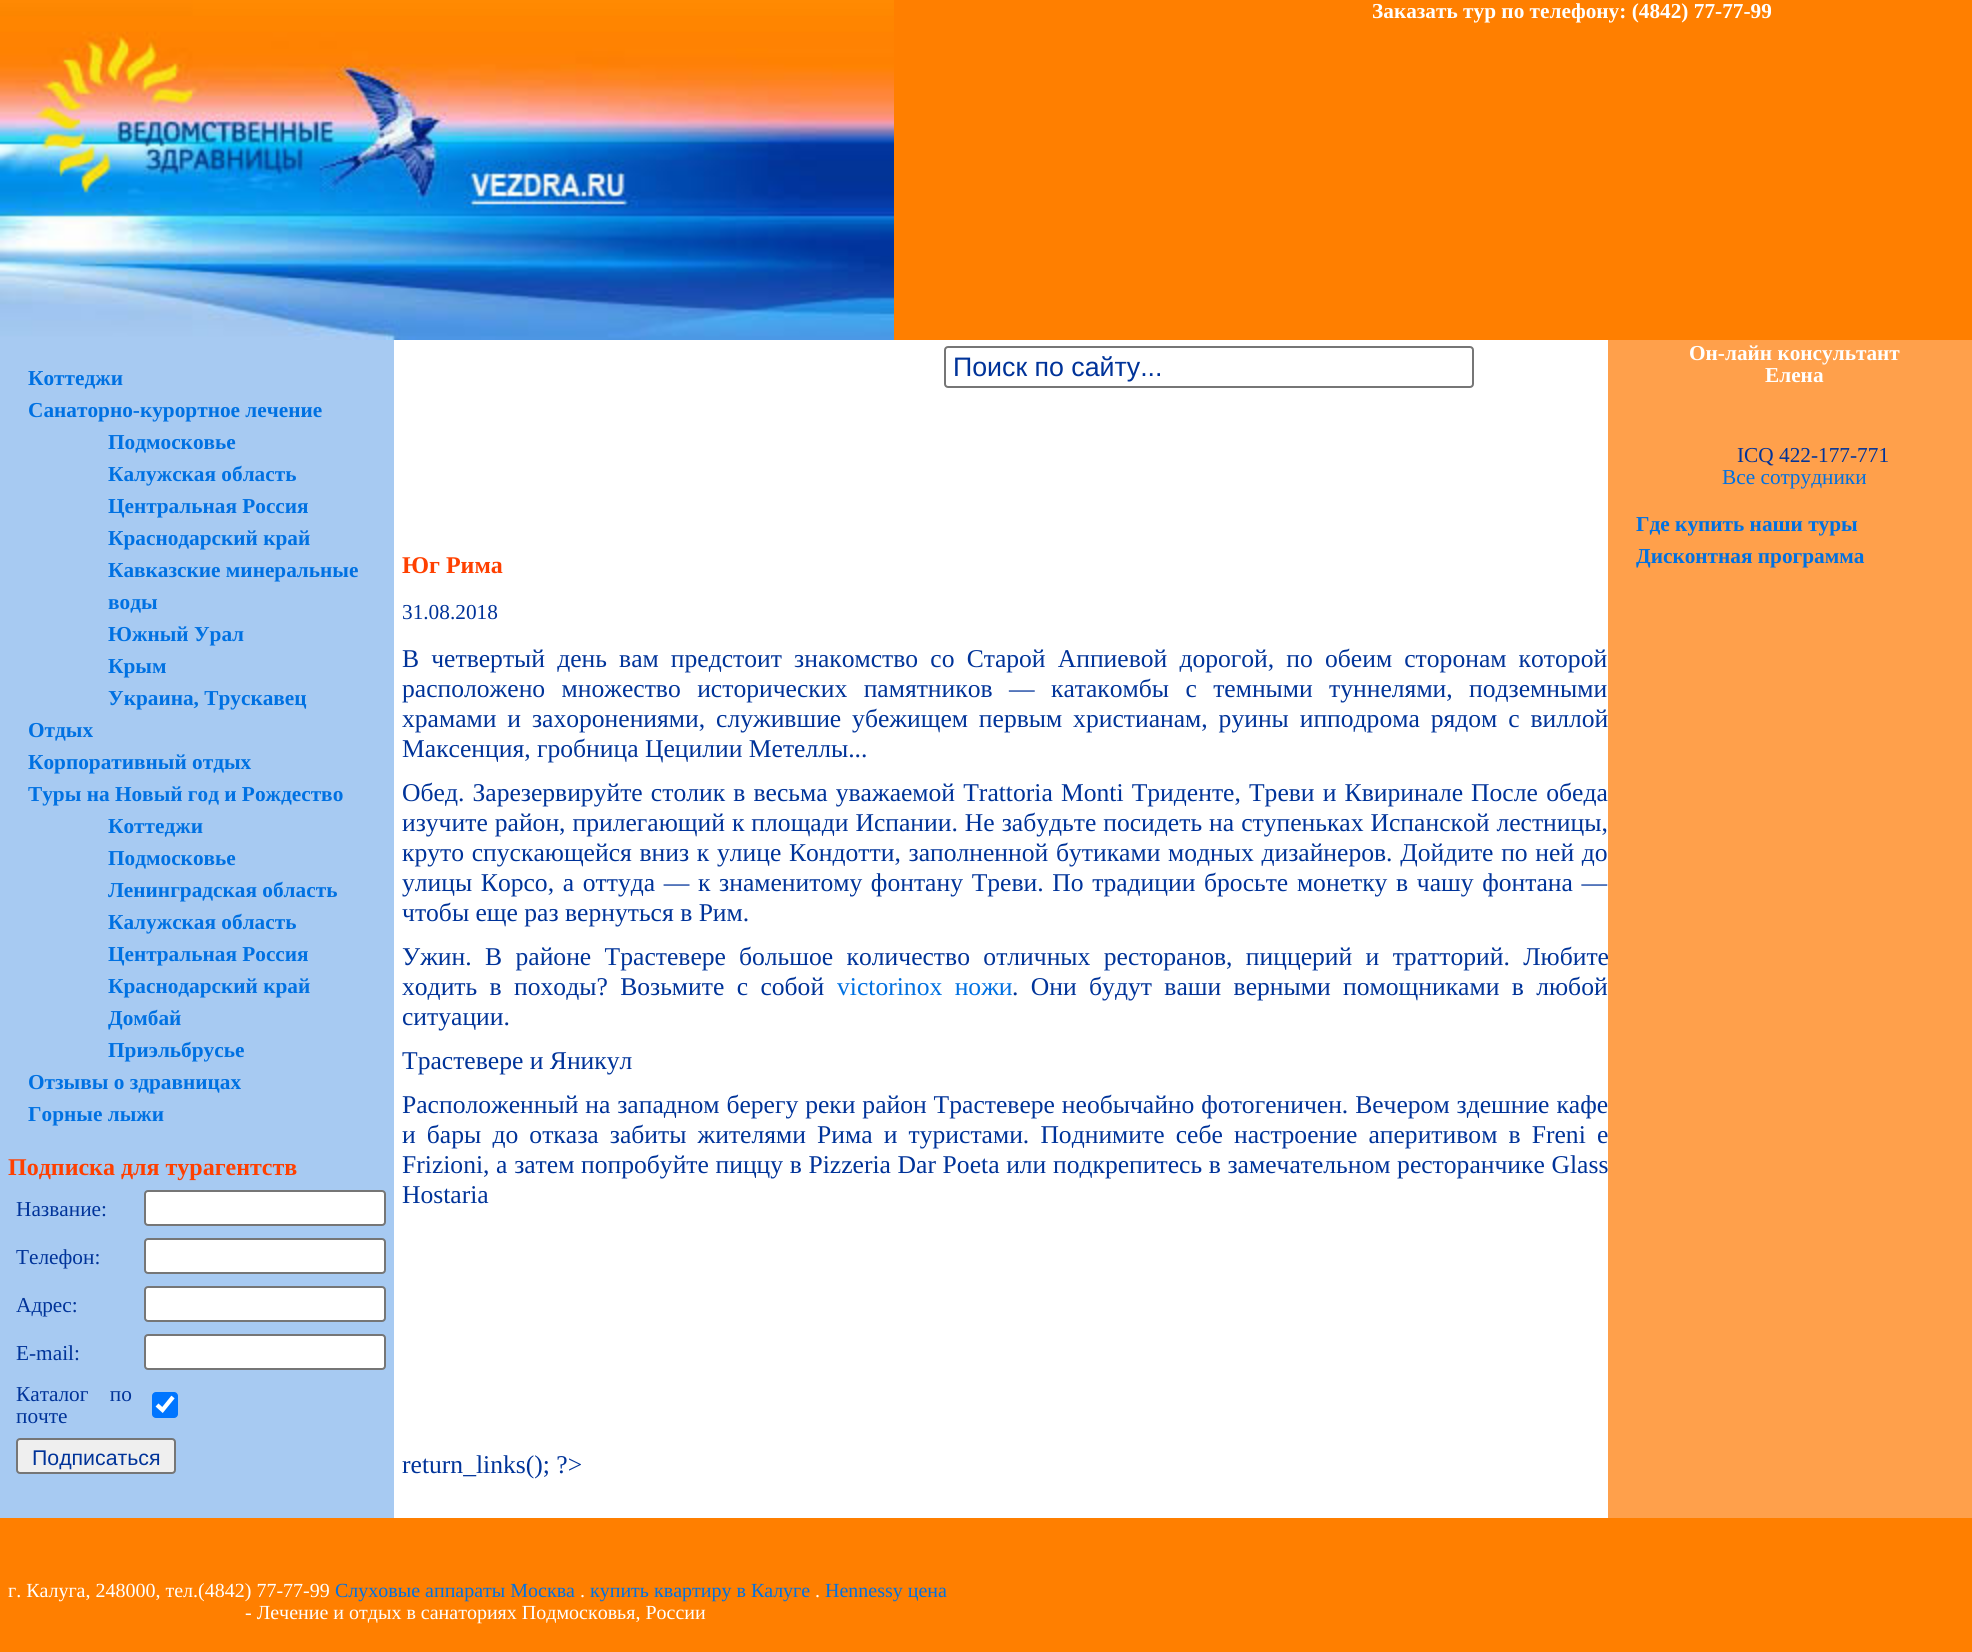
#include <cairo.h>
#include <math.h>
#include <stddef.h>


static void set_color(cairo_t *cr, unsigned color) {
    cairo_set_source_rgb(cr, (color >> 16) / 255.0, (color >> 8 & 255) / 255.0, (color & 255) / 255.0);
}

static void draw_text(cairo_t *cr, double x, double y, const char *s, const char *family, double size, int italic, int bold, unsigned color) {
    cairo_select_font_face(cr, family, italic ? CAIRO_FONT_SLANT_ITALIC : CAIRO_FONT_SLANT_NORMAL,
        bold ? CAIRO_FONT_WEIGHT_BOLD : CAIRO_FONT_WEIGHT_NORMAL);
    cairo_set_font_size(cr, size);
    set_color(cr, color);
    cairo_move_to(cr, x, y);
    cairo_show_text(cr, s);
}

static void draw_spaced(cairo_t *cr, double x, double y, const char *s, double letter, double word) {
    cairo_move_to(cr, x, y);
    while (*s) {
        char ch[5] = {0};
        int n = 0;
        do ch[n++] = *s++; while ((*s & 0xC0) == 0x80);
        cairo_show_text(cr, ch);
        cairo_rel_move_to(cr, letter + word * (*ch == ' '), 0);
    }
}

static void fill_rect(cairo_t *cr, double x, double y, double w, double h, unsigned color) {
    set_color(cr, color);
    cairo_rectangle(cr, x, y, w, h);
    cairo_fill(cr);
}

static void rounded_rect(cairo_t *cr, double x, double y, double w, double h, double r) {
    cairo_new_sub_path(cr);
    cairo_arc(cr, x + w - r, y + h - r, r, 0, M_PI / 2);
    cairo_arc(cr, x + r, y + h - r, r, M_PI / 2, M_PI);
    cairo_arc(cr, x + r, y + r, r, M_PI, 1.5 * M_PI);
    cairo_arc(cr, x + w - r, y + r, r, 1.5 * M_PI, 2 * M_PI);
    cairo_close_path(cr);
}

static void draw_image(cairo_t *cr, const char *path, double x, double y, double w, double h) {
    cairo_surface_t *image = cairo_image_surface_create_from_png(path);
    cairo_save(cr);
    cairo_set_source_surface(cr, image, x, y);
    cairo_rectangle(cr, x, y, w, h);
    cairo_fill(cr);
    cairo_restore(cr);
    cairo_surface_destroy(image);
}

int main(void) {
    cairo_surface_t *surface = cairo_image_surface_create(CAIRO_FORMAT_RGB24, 1972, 1652);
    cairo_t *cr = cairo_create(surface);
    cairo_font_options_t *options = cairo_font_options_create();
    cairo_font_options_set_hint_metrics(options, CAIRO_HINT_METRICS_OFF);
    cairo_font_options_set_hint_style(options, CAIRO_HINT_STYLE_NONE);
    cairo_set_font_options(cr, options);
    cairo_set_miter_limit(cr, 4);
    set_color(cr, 0xFF7F00);
    cairo_paint(cr);
    draw_image(cr, "assets/img1.png", 0, 0, 894, 340);
    draw_text(cr, 1372, 18, "Заказать тур по телефону: (4842) 77-77-99", "Liberation Serif", 21.3, 0, 1, 0xFFFFFF);
    fill_rect(cr, 394, 340, 1214, 1178, 0xFFFFFF);
    fill_rect(cr, 0, 340, 394, 1178, 0xA7CAF2);
    fill_rect(cr, 1608, 340, 364, 1178, 0xFFA04B);
    draw_text(cr, 28, 385, "Коттеджи", "Liberation Serif", 21.3, 0, 1, 0x0071E2);
    draw_text(cr, 28, 417, "Санаторно-курортное лечение", "Liberation Serif", 21.3, 0, 1, 0x0071E2);
    draw_text(cr, 108, 449, "Подмосковье", "Liberation Serif", 21.3, 0, 1, 0x0071E2);
    draw_text(cr, 108, 481, "Калужская область", "Liberation Serif", 21.3, 0, 1, 0x0071E2);
    draw_text(cr, 108, 513, "Центральная Россия", "Liberation Serif", 21.3, 0, 1, 0x0071E2);
    draw_text(cr, 108, 545, "Краснодарский край", "Liberation Serif", 21.3, 0, 1, 0x0071E2);
    draw_text(cr, 108, 577, "Кавказские минеральные", "Liberation Serif", 21.3, 0, 1, 0x0071E2);
    draw_text(cr, 108, 609, "воды", "Liberation Serif", 21.3, 0, 1, 0x0071E2);
    draw_text(cr, 108, 641, "Южный Урал", "Liberation Serif", 21.3, 0, 1, 0x0071E2);
    draw_text(cr, 108, 673, "Крым", "Liberation Serif", 21.3, 0, 1, 0x0071E2);
    draw_text(cr, 108, 705, "Украина, Трускавец", "Liberation Serif", 21.3, 0, 1, 0x0071E2);
    draw_text(cr, 28, 737, "Отдых", "Liberation Serif", 21.3, 0, 1, 0x0071E2);
    draw_text(cr, 28, 769, "Корпоративный отдых", "Liberation Serif", 21.3, 0, 1, 0x0071E2);
    draw_text(cr, 28, 801, "Туры на Новый год и Рождество", "Liberation Serif", 21.3, 0, 1, 0x0071E2);
    draw_text(cr, 108, 833, "Коттеджи", "Liberation Serif", 21.3, 0, 1, 0x0071E2);
    draw_text(cr, 108, 865, "Подмосковье", "Liberation Serif", 21.3, 0, 1, 0x0071E2);
    draw_text(cr, 108, 897, "Ленинградская область", "Liberation Serif", 21.3, 0, 1, 0x0071E2);
    draw_text(cr, 108, 929, "Калужская область", "Liberation Serif", 21.3, 0, 1, 0x0071E2);
    draw_text(cr, 108, 961, "Центральная Россия", "Liberation Serif", 21.3, 0, 1, 0x0071E2);
    draw_text(cr, 108, 993, "Краснодарский край", "Liberation Serif", 21.3, 0, 1, 0x0071E2);
    draw_text(cr, 108, 1025, "Домбай", "Liberation Serif", 21.3, 0, 1, 0x0071E2);
    draw_text(cr, 108, 1057, "Приэльбрусье", "Liberation Serif", 21.3, 0, 1, 0x0071E2);
    draw_text(cr, 28, 1089, "Отзывы о здравницах", "Liberation Serif", 21.3, 0, 1, 0x0071E2);
    draw_text(cr, 28, 1121, "Горные лыжи", "Liberation Serif", 21.3, 0, 1, 0x0071E2);
    draw_text(cr, 8, 1175, "Подписка для турагентств", "Liberation Serif", 24, 0, 1, 0xFF4000);
    draw_text(cr, 16, 1216, "Название:", "Liberation Serif", 21.3, 0, 0, 0x003399);
    set_color(cr, 0xFFFFFF);
    rounded_rect(cr, 145, 1191, 240, 34, 3);
    cairo_fill_preserve(cr);
    set_color(cr, 0x767676);
    cairo_stroke(cr);
    draw_text(cr, 16, 1264, "Телефон:", "Liberation Serif", 21.3, 0, 0, 0x003399);
    set_color(cr, 0xFFFFFF);
    rounded_rect(cr, 145, 1239, 240, 34, 3);
    cairo_fill_preserve(cr);
    set_color(cr, 0x767676);
    cairo_stroke(cr);
    draw_text(cr, 16, 1312, "Адрес:", "Liberation Serif", 21.3, 0, 0, 0x003399);
    set_color(cr, 0xFFFFFF);
    rounded_rect(cr, 145, 1287, 240, 34, 3);
    cairo_fill_preserve(cr);
    set_color(cr, 0x767676);
    cairo_stroke(cr);
    draw_text(cr, 16, 1360, "E-mail:", "Liberation Serif", 21.3, 0, 0, 0x003399);
    set_color(cr, 0xFFFFFF);
    rounded_rect(cr, 145, 1335, 240, 34, 3);
    cairo_fill_preserve(cr);
    set_color(cr, 0x767676);
    cairo_stroke(cr);
    set_color(cr, 0x003399);
    draw_spaced(cr, 16, 1401, "Каталог по", 0, 16);
    draw_text(cr, 16, 1423, "почте", "Liberation Serif", 21.3, 0, 0, 0x003399);
    set_color(cr, 0x0075FF);
    rounded_rect(cr, 152, 1392, 26, 26, 4);
    cairo_fill(cr);
    cairo_new_path(cr);
    cairo_move_to(cr, 157, 1405);
    cairo_line_to(cr, 162.5, 1410);
    cairo_line_to(cr, 173, 1397);
    set_color(cr, 0xFFFFFF);
    cairo_set_line_width(cr, 4.2);
    cairo_stroke(cr);
    set_color(cr, 0xEFEFEF);
    rounded_rect(cr, 17, 1439, 158, 34, 3);
    cairo_fill_preserve(cr);
    set_color(cr, 0x767676);
    cairo_set_line_width(cr, 2);
    cairo_stroke(cr);
    draw_text(cr, 32, 1465, "Подписаться", "Liberation Sans", 21.3, 0, 0, 0x003399);
    rounded_rect(cr, 945, 347, 528, 40, 3);
    set_color(cr, 0x767676);
    cairo_stroke(cr);
    draw_text(cr, 953, 376, "Поиск по сайту...", "Liberation Sans", 26.75, 0, 0, 0x003399);
    draw_text(cr, 402, 573, "Юг Рима", "Liberation Serif", 24, 0, 1, 0xFF4000);
    draw_text(cr, 402, 619, "31.08.2018", "Liberation Serif", 21.3, 0, 0, 0x003399);
    cairo_set_font_size(cr, 25.6);
    draw_spaced(cr, 402, 667, "В четвертый день вам предстоит знакомство со Старой Аппиевой дорогой, по обеим сторонам которой", 0, 5.75);
    draw_spaced(cr, 402, 697, "расположено множество исторических памятников — катакомбы с темными туннелями, подземными", 0, 10);
    draw_spaced(cr, 402, 727, "храмами и захоронениями, служившие убежищем первым христианам, руины ипподрома рядом с виллой", 0, 4.5);
    draw_text(cr, 402, 757, "Максенция, гробница Цецилии Метеллы...", "Liberation Serif", 25.6, 0, 0, 0x003399);
    draw_spaced(cr, 402, 801, "Обед. Зарезервируйте столик в весьма уважаемой Trattoria Monti Триденте, Треви и Квиринале", 0, 1.75);
    draw_spaced(cr, 1471, 801, "После обеда", 0, 2);
    draw_spaced(cr, 402, 831, "изучите район, прилегающий к площади Испании. Не забудьте посидеть на ступеньках Испанской лестницы,", 0, 0.6);
    draw_spaced(cr, 402, 861, "круто спускающейся вниз к улице Кондотти, заполненной бутиками модных дизайнеров. Дойдите по ней до", 0, 1.3);
    draw_spaced(cr, 402, 891, "улицы Корсо, а оттуда — к знаменитому фонтану Треви. По традиции бросьте монетку в чашу фонтана —", 0, 2.25);
    draw_text(cr, 402, 921, "чтобы еще раз вернуться в Рим.", "Liberation Serif", 25.6, 0, 0, 0x003399);
    draw_spaced(cr, 402, 965, "Ужин. В районе Трастевере", 0, 7);
    draw_spaced(cr, 739, 965, "большое количество отличных ресторанов, пиццерий и тратторий. Любите", 0, 7);
    draw_spaced(cr, 402, 995, "ходить в походы? Возьмите с собой", 0, 6);
    set_color(cr, 0x0071E2);
    draw_spaced(cr, 837, 995, "victorinox ножи", 0, 6);
    set_color(cr, 0x003399);
    draw_spaced(cr, 1012, 995, ". Они будут ваши верными помощниками в любой", 0, 6);
    draw_text(cr, 402, 1025, "ситуации.", "Liberation Serif", 25.6, 0, 0, 0x003399);
    draw_text(cr, 402, 1069, "Трастевере и Яникул", "Liberation Serif", 25.6, 0, 0, 0x003399);
    draw_spaced(cr, 402, 1113, "Расположенный на западном берегу реки район Трастевере необычайно фотогеничен. Вечером здешние кафе", 0, 0.5);
    draw_spaced(cr, 402, 1143, "и бары до отказа забиты жителями Рима и туристами. Поднимите себе настроение аперитивом в Freni е", 0, 4.75);
    draw_spaced(cr, 402, 1173, "Frizioni, а затем попробуйте пиццу в Pizzeria Dar Poeta или подкрепитесь в замечательном ресторанчике Glass", 0, 0.25);
    draw_text(cr, 402, 1203, "Hostaria", "Liberation Serif", 25.6, 0, 0, 0x003399);
    draw_text(cr, 402, 1473, "return_links(); ?>", "Liberation Serif", 25.6, 0, 0, 0x003399);
    draw_text(cr, 1689, 360, "Он-лайн консультант", "Liberation Serif", 21.3, 0, 1, 0xFFFFFF);
    draw_text(cr, 1765, 382, "Елена", "Liberation Serif", 21.3, 0, 1, 0xFFFFFF);
    draw_text(cr, 1737, 462, "ICQ 422-177-771", "Liberation Serif", 21.3, 0, 0, 0x003399);
    draw_text(cr, 1722, 484, "Все сотрудники", "Liberation Serif", 21.3, 0, 0, 0x0071E2);
    draw_text(cr, 1636, 531, "Где купить наши туры", "Liberation Serif", 21.3, 0, 1, 0x0071E2);
    draw_text(cr, 1636, 563, "Дисконтная программа", "Liberation Serif", 21.3, 0, 1, 0x0071E2);
    draw_text(cr, 8, 1597, "г. Калуга, 248000, тел.(4842) 77-77-99", "Liberation Serif", 20, 0, 0, 0xFFFFFF);
    draw_text(cr, 335, 1597, "Слуховые аппараты Москва", "Liberation Serif", 20, 0, 0, 0x0071E2);
    draw_text(cr, 580, 1597, ".", "Liberation Serif", 20, 0, 0, 0xFFFFFF);
    draw_text(cr, 590, 1597, "купить квартиру в Калуге", "Liberation Serif", 20, 0, 0, 0x0071E2);
    draw_text(cr, 815, 1597, ".", "Liberation Serif", 20, 0, 0, 0xFFFFFF);
    draw_text(cr, 825, 1597, "Hennessy цена", "Liberation Serif", 20, 0, 0, 0x0071E2);
    draw_text(cr, 245, 1619, "- Лечение и отдых в санаториях Подмосковья, России", "Liberation Serif", 20, 0, 0, 0xFFFFFF);
    cairo_surface_write_to_png(surface, "output.png");
    cairo_font_options_destroy(options);
    cairo_destroy(cr);
    cairo_surface_destroy(surface);
    return 0;
}
